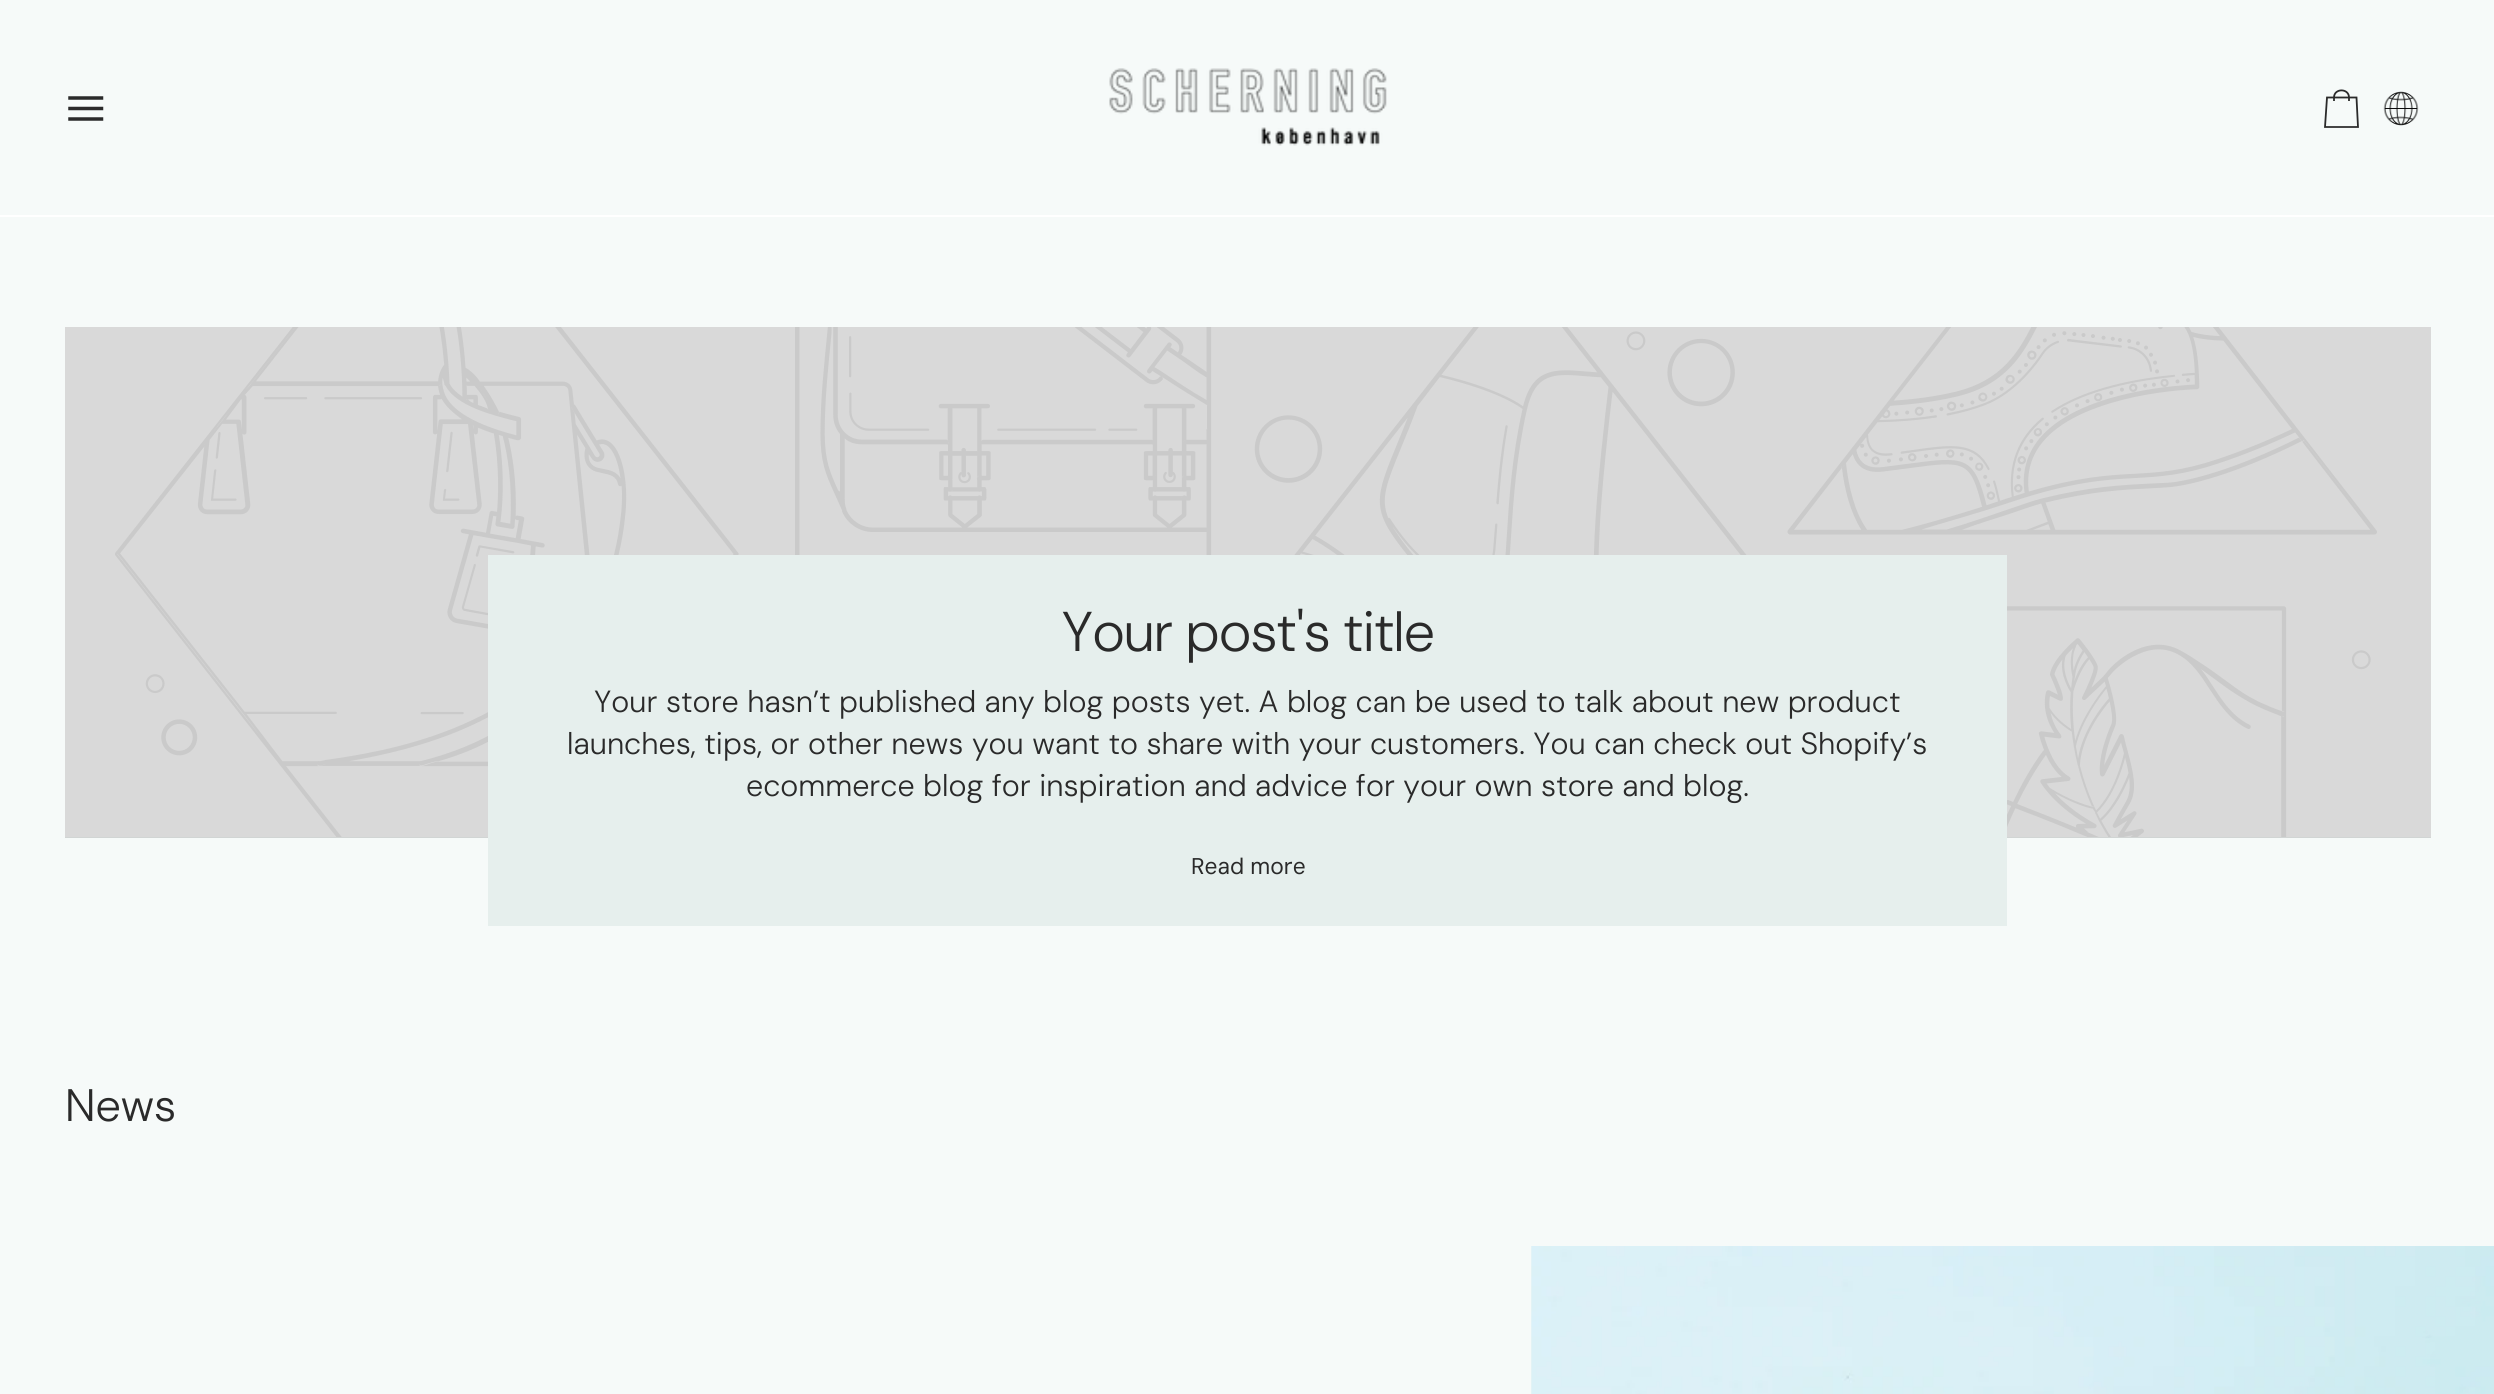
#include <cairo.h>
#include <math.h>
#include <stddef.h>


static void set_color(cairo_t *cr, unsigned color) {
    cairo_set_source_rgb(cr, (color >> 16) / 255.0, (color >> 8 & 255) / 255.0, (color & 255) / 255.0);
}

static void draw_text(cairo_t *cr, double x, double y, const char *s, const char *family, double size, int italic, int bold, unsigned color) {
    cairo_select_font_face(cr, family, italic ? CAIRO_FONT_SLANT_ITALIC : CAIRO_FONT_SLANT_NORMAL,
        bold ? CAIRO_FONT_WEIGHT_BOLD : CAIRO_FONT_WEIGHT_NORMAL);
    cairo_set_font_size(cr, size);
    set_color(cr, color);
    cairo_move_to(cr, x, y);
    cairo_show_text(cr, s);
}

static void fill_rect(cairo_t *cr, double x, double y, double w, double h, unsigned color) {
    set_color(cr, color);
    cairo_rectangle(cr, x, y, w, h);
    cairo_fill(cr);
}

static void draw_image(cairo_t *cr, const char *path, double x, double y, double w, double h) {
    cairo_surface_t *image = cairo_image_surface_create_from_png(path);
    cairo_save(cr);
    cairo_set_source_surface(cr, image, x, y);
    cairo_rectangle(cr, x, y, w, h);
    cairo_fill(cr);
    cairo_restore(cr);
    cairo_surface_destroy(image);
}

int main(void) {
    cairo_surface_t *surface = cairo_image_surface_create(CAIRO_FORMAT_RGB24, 2494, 1394);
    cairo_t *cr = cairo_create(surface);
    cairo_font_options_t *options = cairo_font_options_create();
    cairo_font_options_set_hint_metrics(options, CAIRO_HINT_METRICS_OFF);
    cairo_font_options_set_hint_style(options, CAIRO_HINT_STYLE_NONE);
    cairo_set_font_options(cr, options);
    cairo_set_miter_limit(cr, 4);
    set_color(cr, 0xF6FAF9);
    cairo_paint(cr);
    fill_rect(cr, 0, 215, 2494, 2, 0xFFFFFF);
    cairo_new_path(cr);
    cairo_move_to(cr, 101.5, 98);
    cairo_line_to(cr, 70, 98);
    cairo_move_to(cr, 101.5, 108.5);
    cairo_line_to(cr, 70, 108.5);
    cairo_move_to(cr, 101.5, 119);
    cairo_line_to(cr, 70, 119);
    set_color(cr, 0x2A2A2A);
    cairo_set_line_width(cr, 3.5);
    cairo_set_line_cap(cr, CAIRO_LINE_CAP_SQUARE);
    cairo_stroke(cr);
    draw_image(cr, "assets/img1.png", 1109, 68, 278, 78);
    cairo_new_path(cr);
    cairo_move_to(cr, 2349, 101);
    cairo_line_to(cr, 2349, 97.5);
    cairo_line_to(cr, 2356.5, 97.5);
    cairo_line_to(cr, 2358, 127);
    cairo_line_to(cr, 2325, 127);
    cairo_line_to(cr, 2327, 97.5);
    cairo_line_to(cr, 2334, 97.5);
    cairo_curve_to(cr, 2334, 88, 2349, 88, 2349, 97.5);
    cairo_line_to(cr, 2334, 97.5);
    cairo_line_to(cr, 2334, 101);
    cairo_set_line_width(cr, 1.8);
    cairo_set_line_cap(cr, CAIRO_LINE_CAP_BUTT);
    cairo_stroke(cr);
    draw_image(cr, "assets/img2.png", 2383, 91, 36, 35);
    fill_rect(cr, 65, 837, 2366, 1, 0xD1D5D4);
    fill_rect(cr, 65, 327, 2366, 510, 0xD9D9D9);
    draw_image(cr, "assets/img3.png", 115, 327, 2262, 510);
    fill_rect(cr, 488, 555, 1519, 371, 0xE6EFED);
    draw_text(cr, 1062, 651, "Your post's title", "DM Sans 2 Light", 56, 0, 0, 0x2A2A2A);
    draw_text(cr, 594, 712, "Your store hasn’t published any blog posts yet. A blog can be used to talk about new product", "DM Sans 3 Light", 30.6, 0, 0, 0x2A2A2A);
    draw_text(cr, 567, 754, "launches, tips, or other news you want to share with your customers. You can check out Shopify’s", "DM Sans 3 Light", 30.6, 0, 0, 0x2A2A2A);
    draw_text(cr, 746, 796, "ecommerce blog for inspiration and advice for your own store and blog.", "DM Sans 3 Light", 30.6, 0, 0, 0x2A2A2A);
    draw_text(cr, 1191, 874, "Read more", "DM Sans", 22.75, 0, 0, 0x2A2A2A);
    draw_text(cr, 65, 1121, "News", "DM Sans Light", 45.5, 0, 0, 0x2A2A2A);
    fill_rect(cr, 1531, 1246, 1, 148, 0xEBF5F3);
    draw_image(cr, "assets/img4.png", 1531, 1246, 963, 148);
    cairo_surface_write_to_png(surface, "output.png");
    cairo_font_options_destroy(options);
    cairo_destroy(cr);
    cairo_surface_destroy(surface);
    return 0;
}
